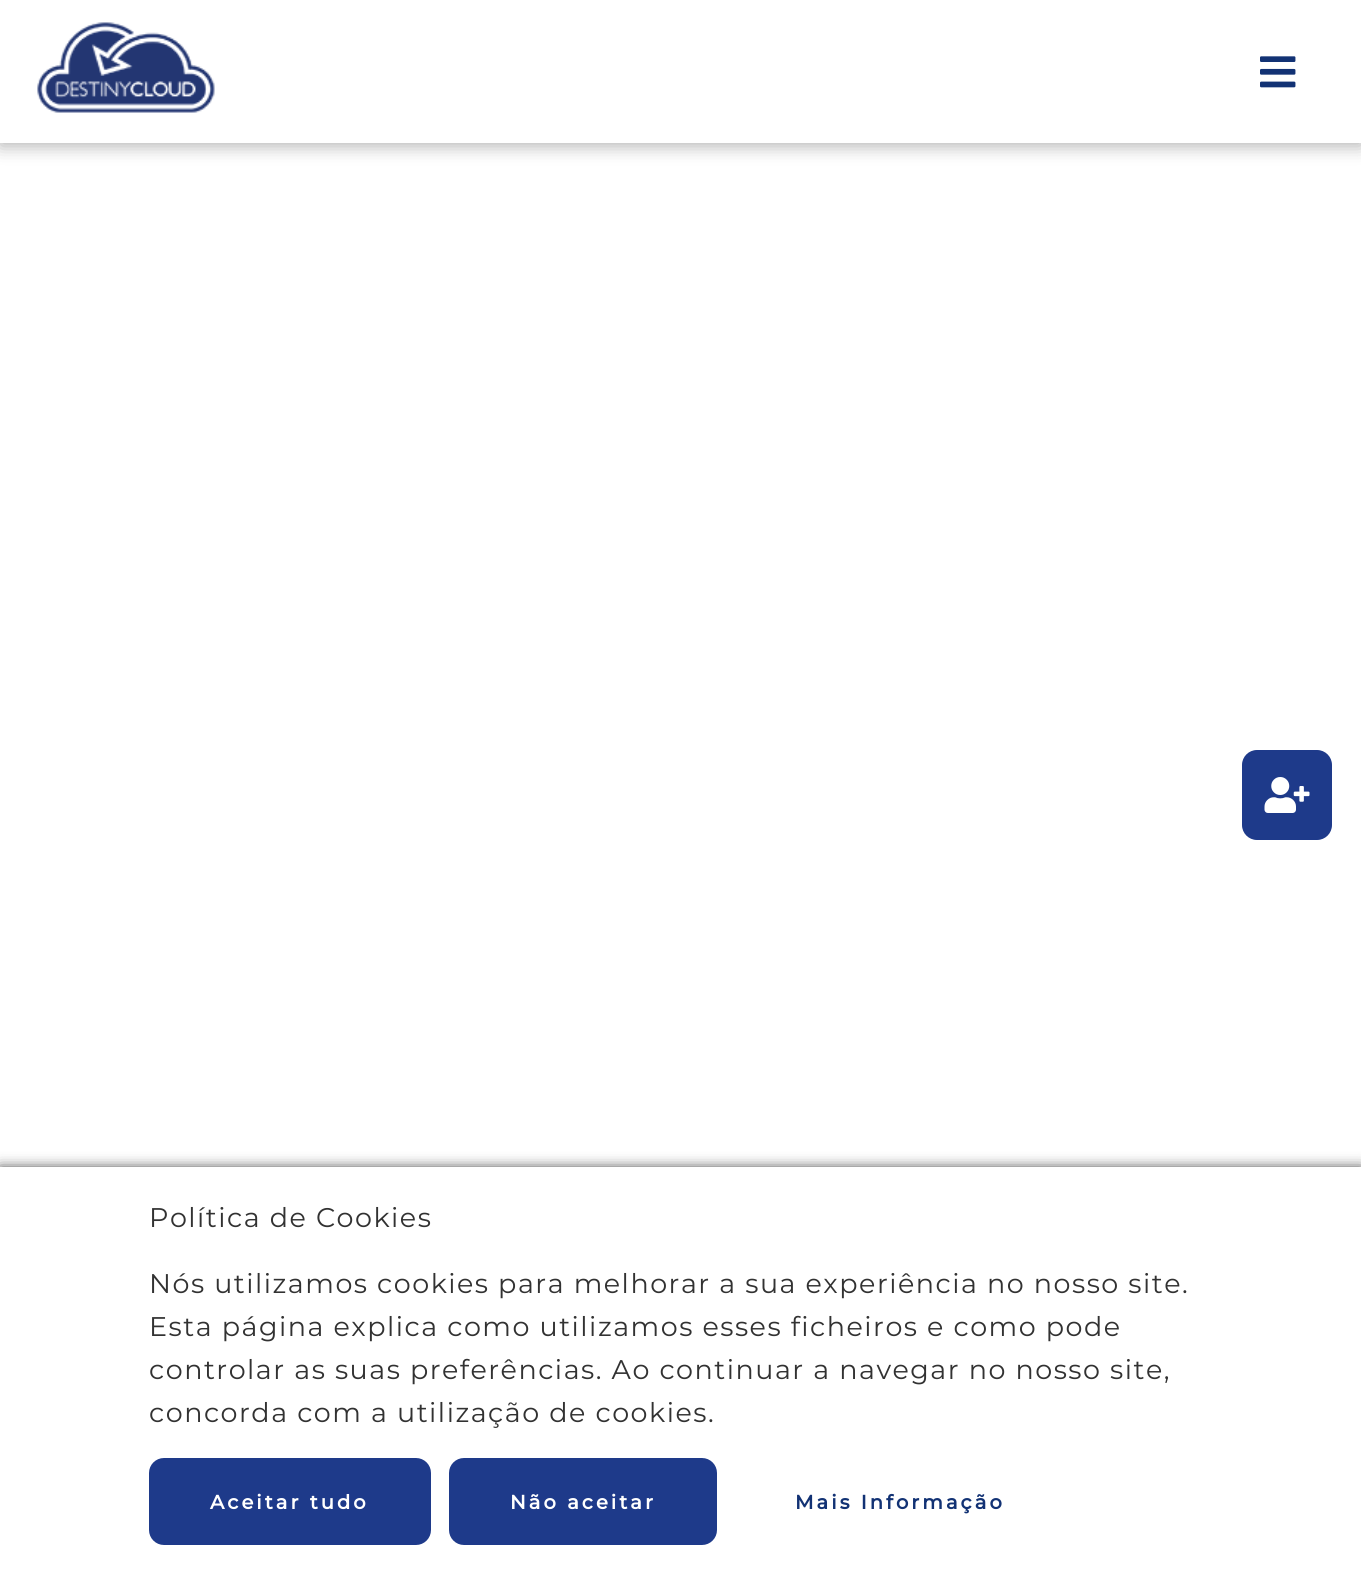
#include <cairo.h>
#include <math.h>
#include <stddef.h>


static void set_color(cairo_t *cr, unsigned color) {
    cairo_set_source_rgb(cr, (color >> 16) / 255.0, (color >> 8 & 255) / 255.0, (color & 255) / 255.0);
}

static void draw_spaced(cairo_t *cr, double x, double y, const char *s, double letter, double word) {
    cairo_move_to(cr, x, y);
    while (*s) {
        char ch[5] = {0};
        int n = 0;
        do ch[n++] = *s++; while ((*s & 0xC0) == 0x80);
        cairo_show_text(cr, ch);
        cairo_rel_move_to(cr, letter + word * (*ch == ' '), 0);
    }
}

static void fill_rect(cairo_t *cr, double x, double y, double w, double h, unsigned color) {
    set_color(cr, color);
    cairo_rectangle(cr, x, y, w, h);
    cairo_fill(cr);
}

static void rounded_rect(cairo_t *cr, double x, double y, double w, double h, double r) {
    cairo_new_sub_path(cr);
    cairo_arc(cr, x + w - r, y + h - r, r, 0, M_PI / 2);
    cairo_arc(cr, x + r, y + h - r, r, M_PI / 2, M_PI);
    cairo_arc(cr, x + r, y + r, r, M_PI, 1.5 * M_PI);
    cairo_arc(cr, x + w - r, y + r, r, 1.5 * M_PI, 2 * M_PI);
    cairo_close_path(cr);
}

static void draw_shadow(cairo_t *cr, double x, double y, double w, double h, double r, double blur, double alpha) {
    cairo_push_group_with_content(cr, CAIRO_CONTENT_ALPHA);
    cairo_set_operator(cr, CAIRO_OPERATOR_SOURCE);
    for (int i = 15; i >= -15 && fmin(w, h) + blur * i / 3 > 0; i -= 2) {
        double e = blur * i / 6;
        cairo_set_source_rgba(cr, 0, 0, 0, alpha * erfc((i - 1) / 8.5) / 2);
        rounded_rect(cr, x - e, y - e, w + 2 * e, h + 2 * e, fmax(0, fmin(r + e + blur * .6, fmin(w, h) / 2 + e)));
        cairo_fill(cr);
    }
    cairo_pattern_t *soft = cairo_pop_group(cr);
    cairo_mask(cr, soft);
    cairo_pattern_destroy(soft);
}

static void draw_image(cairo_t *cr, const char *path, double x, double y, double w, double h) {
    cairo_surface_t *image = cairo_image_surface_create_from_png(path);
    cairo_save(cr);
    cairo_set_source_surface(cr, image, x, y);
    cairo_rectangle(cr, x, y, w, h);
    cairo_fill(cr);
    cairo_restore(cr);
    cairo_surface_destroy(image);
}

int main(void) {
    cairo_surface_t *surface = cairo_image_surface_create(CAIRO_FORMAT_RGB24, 1361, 1590);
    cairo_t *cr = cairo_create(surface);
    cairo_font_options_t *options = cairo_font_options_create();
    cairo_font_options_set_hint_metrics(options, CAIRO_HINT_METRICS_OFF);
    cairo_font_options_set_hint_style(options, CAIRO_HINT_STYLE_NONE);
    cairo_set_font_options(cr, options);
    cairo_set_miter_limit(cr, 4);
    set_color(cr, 0xFFFFFF);
    cairo_paint(cr);
    cairo_save(cr);
    cairo_set_fill_rule(cr, CAIRO_FILL_RULE_EVEN_ODD);
    cairo_new_path(cr);
    cairo_move_to(cr, 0, 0);
    cairo_line_to(cr, 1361, 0);
    cairo_line_to(cr, 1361, 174);
    cairo_line_to(cr, 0, 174);
    cairo_close_path(cr);
    cairo_move_to(cr, 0, 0);
    cairo_line_to(cr, 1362, 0);
    cairo_line_to(cr, 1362, 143);
    cairo_line_to(cr, 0, 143);
    cairo_close_path(cr);
    cairo_clip(cr);
    set_color(cr, 0x000000);
    draw_shadow(cr, 0, 3, 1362, 143, 0, 9, 0.3);
    cairo_restore(cr);
    cairo_set_source_rgba(cr, 1, 1, 1, 0.95);
    cairo_rectangle(cr, 0, 142, 1361, 1);
    cairo_fill(cr);
    draw_image(cr, "assets/img1.png", 37, 22, 178, 91);
    draw_image(cr, "assets/img2.png", 1260, 56, 36, 32);
    set_color(cr, 0x1E3A8A);
    rounded_rect(cr, 1242, 750, 90, 90, 15);
    cairo_fill(cr);
    draw_image(cr, "assets/img3.png", 1264, 777, 46, 36);
    set_color(cr, 0x000000);
    draw_shadow(cr, 0, 1170, 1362, 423, 0, 7.5, 1);
    fill_rect(cr, 0, 1167, 1361, 423, 0xFFFFFF);
    cairo_select_font_face(cr, "Montserrat", CAIRO_FONT_SLANT_NORMAL, CAIRO_FONT_WEIGHT_NORMAL);
    cairo_set_font_size(cr, 27);
    set_color(cr, 0x323232);
    draw_spaced(cr, 149, 1227, "Política de Cookies", 1.5, 0);
    draw_spaced(cr, 149, 1293, "Nós utilizamos cookies para melhorar a sua experiência no nosso site.", 1.5, 0);
    draw_spaced(cr, 149, 1336, "Esta página explica como utilizamos esses ficheiros e como pode", 1.5, 0);
    draw_spaced(cr, 149, 1379, "controlar as suas preferências. Ao continuar a navegar no nosso site,", 1.5, 0);
    draw_spaced(cr, 149, 1422, "concorda com a utilização de cookies.", 1.5, 0);
    set_color(cr, 0x1E3A8A);
    rounded_rect(cr, 150, 1459, 280, 85, 14);
    cairo_fill_preserve(cr);
    cairo_stroke(cr);
    cairo_select_font_face(cr, "Montserrat", CAIRO_FONT_SLANT_NORMAL, CAIRO_FONT_WEIGHT_BOLD);
    cairo_set_font_size(cr, 19.5);
    set_color(cr, 0xFFFFFF);
    draw_spaced(cr, 210, 1509, "Aceitar tudo", 3, 0);
    set_color(cr, 0x1E3A8A);
    rounded_rect(cr, 450, 1459, 266, 85, 14);
    cairo_fill_preserve(cr);
    cairo_stroke(cr);
    set_color(cr, 0xFFFFFF);
    draw_spaced(cr, 510, 1509, "Não aceitar", 3, 0);
    set_color(cr, 0x123274);
    draw_spaced(cr, 795, 1509, "Mais Informação", 3, 0);
    cairo_surface_write_to_png(surface, "output.png");
    cairo_font_options_destroy(options);
    cairo_destroy(cr);
    cairo_surface_destroy(surface);
    return 0;
}
